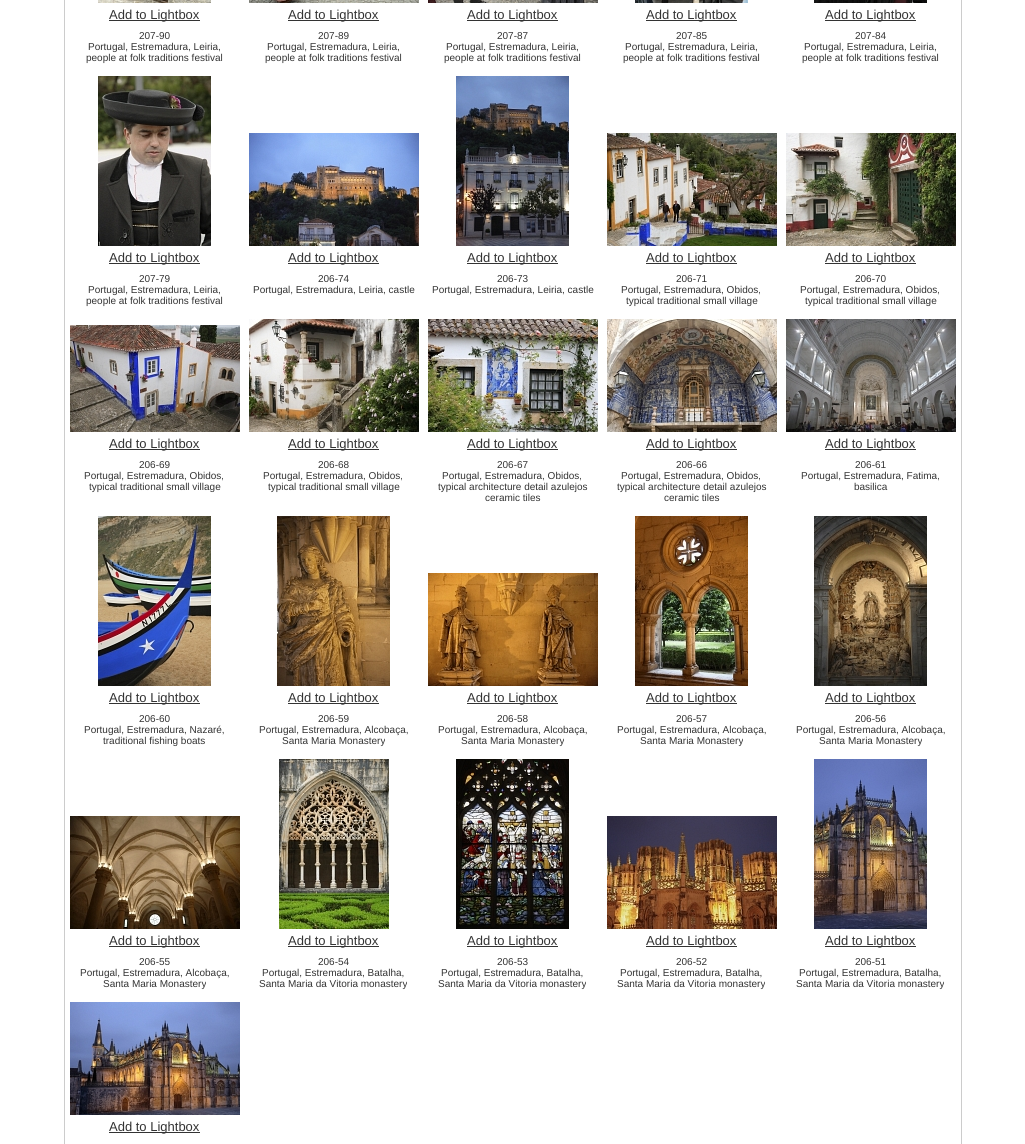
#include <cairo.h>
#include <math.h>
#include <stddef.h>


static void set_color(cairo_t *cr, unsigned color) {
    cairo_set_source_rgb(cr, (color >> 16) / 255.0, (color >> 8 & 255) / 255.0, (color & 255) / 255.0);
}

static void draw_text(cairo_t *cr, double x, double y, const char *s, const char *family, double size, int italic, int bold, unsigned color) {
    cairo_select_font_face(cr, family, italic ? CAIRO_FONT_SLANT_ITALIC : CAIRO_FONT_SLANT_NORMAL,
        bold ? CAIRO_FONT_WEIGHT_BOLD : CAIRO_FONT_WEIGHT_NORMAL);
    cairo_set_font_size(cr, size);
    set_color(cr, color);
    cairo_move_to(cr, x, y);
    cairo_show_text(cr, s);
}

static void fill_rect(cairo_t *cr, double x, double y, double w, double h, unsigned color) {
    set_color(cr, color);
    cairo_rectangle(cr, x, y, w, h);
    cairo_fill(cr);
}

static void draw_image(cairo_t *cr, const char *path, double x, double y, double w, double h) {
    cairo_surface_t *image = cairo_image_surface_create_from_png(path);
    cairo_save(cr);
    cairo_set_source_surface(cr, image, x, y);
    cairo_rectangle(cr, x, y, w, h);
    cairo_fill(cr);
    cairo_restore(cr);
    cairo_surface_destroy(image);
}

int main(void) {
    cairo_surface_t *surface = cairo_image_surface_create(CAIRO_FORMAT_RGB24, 1025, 1144);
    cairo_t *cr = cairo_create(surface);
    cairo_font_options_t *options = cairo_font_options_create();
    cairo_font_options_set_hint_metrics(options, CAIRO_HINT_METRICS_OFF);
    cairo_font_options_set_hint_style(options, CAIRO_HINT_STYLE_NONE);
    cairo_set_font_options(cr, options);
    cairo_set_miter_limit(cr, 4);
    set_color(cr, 0xFFFFFF);
    cairo_paint(cr);
    fill_rect(cr, 64, 0, 898, 1144, 0xCCCCCC);
    fill_rect(cr, 65, 0, 896, 1144, 0xFFFFFF);
    draw_image(cr, "assets/img1.png", 98, 0, 113, 3);
    fill_rect(cr, 109, 20, 91, 1, 0x333333);
    draw_text(cr, 109, 19, "Add to Lightbox", "Liberation Sans", 13, 0, 0, 0x333333);
    draw_image(cr, "assets/img2.png", 249, 0, 170, 3);
    fill_rect(cr, 288, 20, 91, 1, 0x333333);
    draw_text(cr, 288, 19, "Add to Lightbox", "Liberation Sans", 13, 0, 0, 0x333333);
    draw_image(cr, "assets/img3.png", 428, 0, 170, 3);
    fill_rect(cr, 467, 20, 91, 1, 0x333333);
    draw_text(cr, 467, 19, "Add to Lightbox", "Liberation Sans", 13, 0, 0, 0x333333);
    draw_image(cr, "assets/img4.png", 635, 0, 113, 3);
    fill_rect(cr, 646, 20, 91, 1, 0x333333);
    draw_text(cr, 646, 19, "Add to Lightbox", "Liberation Sans", 13, 0, 0, 0x333333);
    draw_image(cr, "assets/img5.png", 814, 0, 113, 3);
    fill_rect(cr, 825, 20, 91, 1, 0x333333);
    draw_text(cr, 825, 19, "Add to Lightbox", "Liberation Sans", 13, 0, 0, 0x333333);
    draw_text(cr, 139, 39, "207-90", "Liberation Sans", 10, 0, 0, 0x333333);
    draw_text(cr, 88, 50, "Portugal, Estremadura, Leiria,", "Liberation Sans", 10, 0, 0, 0x333333);
    draw_text(cr, 86, 61, "people at folk traditions festival", "Liberation Sans", 10, 0, 0, 0x333333);
    draw_text(cr, 318, 39, "207-89", "Liberation Sans", 10, 0, 0, 0x333333);
    draw_text(cr, 267, 50, "Portugal, Estremadura, Leiria,", "Liberation Sans", 10, 0, 0, 0x333333);
    draw_text(cr, 265, 61, "people at folk traditions festival", "Liberation Sans", 10, 0, 0, 0x333333);
    draw_text(cr, 497, 39, "207-87", "Liberation Sans", 10, 0, 0, 0x333333);
    draw_text(cr, 446, 50, "Portugal, Estremadura, Leiria,", "Liberation Sans", 10, 0, 0, 0x333333);
    draw_text(cr, 444, 61, "people at folk traditions festival", "Liberation Sans", 10, 0, 0, 0x333333);
    draw_text(cr, 676, 39, "207-85", "Liberation Sans", 10, 0, 0, 0x333333);
    draw_text(cr, 625, 50, "Portugal, Estremadura, Leiria,", "Liberation Sans", 10, 0, 0, 0x333333);
    draw_text(cr, 623, 61, "people at folk traditions festival", "Liberation Sans", 10, 0, 0, 0x333333);
    draw_text(cr, 855, 39, "207-84", "Liberation Sans", 10, 0, 0, 0x333333);
    draw_text(cr, 804, 50, "Portugal, Estremadura, Leiria,", "Liberation Sans", 10, 0, 0, 0x333333);
    draw_text(cr, 802, 61, "people at folk traditions festival", "Liberation Sans", 10, 0, 0, 0x333333);
    draw_image(cr, "assets/img6.png", 98, 76, 113, 170);
    fill_rect(cr, 109, 263, 91, 1, 0x333333);
    draw_text(cr, 109, 262, "Add to Lightbox", "Liberation Sans", 13, 0, 0, 0x333333);
    draw_image(cr, "assets/img7.png", 249, 133, 170, 113);
    fill_rect(cr, 288, 263, 91, 1, 0x333333);
    draw_text(cr, 288, 262, "Add to Lightbox", "Liberation Sans", 13, 0, 0, 0x333333);
    draw_image(cr, "assets/img8.png", 456, 76, 113, 170);
    fill_rect(cr, 467, 263, 91, 1, 0x333333);
    draw_text(cr, 467, 262, "Add to Lightbox", "Liberation Sans", 13, 0, 0, 0x333333);
    draw_image(cr, "assets/img9.png", 607, 133, 170, 113);
    fill_rect(cr, 646, 263, 91, 1, 0x333333);
    draw_text(cr, 646, 262, "Add to Lightbox", "Liberation Sans", 13, 0, 0, 0x333333);
    draw_image(cr, "assets/img10.png", 786, 133, 170, 113);
    fill_rect(cr, 825, 263, 91, 1, 0x333333);
    draw_text(cr, 825, 262, "Add to Lightbox", "Liberation Sans", 13, 0, 0, 0x333333);
    draw_text(cr, 139, 282, "207-79", "Liberation Sans", 10, 0, 0, 0x333333);
    draw_text(cr, 88, 293, "Portugal, Estremadura, Leiria,", "Liberation Sans", 10, 0, 0, 0x333333);
    draw_text(cr, 86, 304, "people at folk traditions festival", "Liberation Sans", 10, 0, 0, 0x333333);
    draw_text(cr, 318, 282, "206-74", "Liberation Sans", 10, 0, 0, 0x333333);
    draw_text(cr, 253, 293, "Portugal, Estremadura, Leiria, castle", "Liberation Sans", 10, 0, 0, 0x333333);
    draw_text(cr, 497, 282, "206-73", "Liberation Sans", 10, 0, 0, 0x333333);
    draw_text(cr, 432, 293, "Portugal, Estremadura, Leiria, castle", "Liberation Sans", 10, 0, 0, 0x333333);
    draw_text(cr, 676, 282, "206-71", "Liberation Sans", 10, 0, 0, 0x333333);
    draw_text(cr, 621, 293, "Portugal, Estremadura, Obidos,", "Liberation Sans", 10, 0, 0, 0x333333);
    draw_text(cr, 626, 304, "typical traditional small village", "Liberation Sans", 10, 0, 0, 0x333333);
    draw_text(cr, 855, 282, "206-70", "Liberation Sans", 10, 0, 0, 0x333333);
    draw_text(cr, 800, 293, "Portugal, Estremadura, Obidos,", "Liberation Sans", 10, 0, 0, 0x333333);
    draw_text(cr, 805, 304, "typical traditional small village", "Liberation Sans", 10, 0, 0, 0x333333);
    draw_image(cr, "assets/img11.png", 70, 325, 170, 107);
    fill_rect(cr, 109, 449, 91, 1, 0x333333);
    draw_text(cr, 109, 448, "Add to Lightbox", "Liberation Sans", 13, 0, 0, 0x333333);
    draw_image(cr, "assets/img12.png", 249, 319, 170, 113);
    fill_rect(cr, 288, 449, 91, 1, 0x333333);
    draw_text(cr, 288, 448, "Add to Lightbox", "Liberation Sans", 13, 0, 0, 0x333333);
    draw_image(cr, "assets/img13.png", 428, 319, 170, 113);
    fill_rect(cr, 467, 449, 91, 1, 0x333333);
    draw_text(cr, 467, 448, "Add to Lightbox", "Liberation Sans", 13, 0, 0, 0x333333);
    draw_image(cr, "assets/img14.png", 607, 319, 170, 113);
    fill_rect(cr, 646, 449, 91, 1, 0x333333);
    draw_text(cr, 646, 448, "Add to Lightbox", "Liberation Sans", 13, 0, 0, 0x333333);
    draw_image(cr, "assets/img15.png", 786, 319, 170, 113);
    fill_rect(cr, 825, 449, 91, 1, 0x333333);
    draw_text(cr, 825, 448, "Add to Lightbox", "Liberation Sans", 13, 0, 0, 0x333333);
    draw_text(cr, 139, 468, "206-69", "Liberation Sans", 10, 0, 0, 0x333333);
    draw_text(cr, 84, 479, "Portugal, Estremadura, Obidos,", "Liberation Sans", 10, 0, 0, 0x333333);
    draw_text(cr, 89, 490, "typical traditional small village", "Liberation Sans", 10, 0, 0, 0x333333);
    draw_text(cr, 318, 468, "206-68", "Liberation Sans", 10, 0, 0, 0x333333);
    draw_text(cr, 263, 479, "Portugal, Estremadura, Obidos,", "Liberation Sans", 10, 0, 0, 0x333333);
    draw_text(cr, 268, 490, "typical traditional small village", "Liberation Sans", 10, 0, 0, 0x333333);
    draw_text(cr, 497, 468, "206-67", "Liberation Sans", 10, 0, 0, 0x333333);
    draw_text(cr, 442, 479, "Portugal, Estremadura, Obidos,", "Liberation Sans", 10, 0, 0, 0x333333);
    draw_text(cr, 438, 490, "typical architecture detail azulejos", "Liberation Sans", 10, 0, 0, 0x333333);
    draw_text(cr, 485, 501, "ceramic tiles", "Liberation Sans", 10, 0, 0, 0x333333);
    draw_text(cr, 676, 468, "206-66", "Liberation Sans", 10, 0, 0, 0x333333);
    draw_text(cr, 621, 479, "Portugal, Estremadura, Obidos,", "Liberation Sans", 10, 0, 0, 0x333333);
    draw_text(cr, 617, 490, "typical architecture detail azulejos", "Liberation Sans", 10, 0, 0, 0x333333);
    draw_text(cr, 664, 501, "ceramic tiles", "Liberation Sans", 10, 0, 0, 0x333333);
    draw_text(cr, 855, 468, "206-61", "Liberation Sans", 10, 0, 0, 0x333333);
    draw_text(cr, 801, 479, "Portugal, Estremadura, Fatima,", "Liberation Sans", 10, 0, 0, 0x333333);
    draw_text(cr, 854, 490, "basilica", "Liberation Sans", 10, 0, 0, 0x333333);
    draw_image(cr, "assets/img16.png", 98, 516, 113, 170);
    fill_rect(cr, 109, 703, 91, 1, 0x333333);
    draw_text(cr, 109, 702, "Add to Lightbox", "Liberation Sans", 13, 0, 0, 0x333333);
    draw_image(cr, "assets/img17.png", 277, 516, 113, 170);
    fill_rect(cr, 288, 703, 91, 1, 0x333333);
    draw_text(cr, 288, 702, "Add to Lightbox", "Liberation Sans", 13, 0, 0, 0x333333);
    draw_image(cr, "assets/img18.png", 428, 573, 170, 113);
    fill_rect(cr, 467, 703, 91, 1, 0x333333);
    draw_text(cr, 467, 702, "Add to Lightbox", "Liberation Sans", 13, 0, 0, 0x333333);
    draw_image(cr, "assets/img19.png", 635, 516, 113, 170);
    fill_rect(cr, 646, 703, 91, 1, 0x333333);
    draw_text(cr, 646, 702, "Add to Lightbox", "Liberation Sans", 13, 0, 0, 0x333333);
    draw_image(cr, "assets/img20.png", 814, 516, 113, 170);
    fill_rect(cr, 825, 703, 91, 1, 0x333333);
    draw_text(cr, 825, 702, "Add to Lightbox", "Liberation Sans", 13, 0, 0, 0x333333);
    draw_text(cr, 139, 722, "206-60", "Liberation Sans", 10, 0, 0, 0x333333);
    draw_text(cr, 84, 733, "Portugal, Estremadura, Nazaré,", "Liberation Sans", 10, 0, 0, 0x333333);
    draw_text(cr, 103, 744, "traditional fishing boats", "Liberation Sans", 10, 0, 0, 0x333333);
    draw_text(cr, 318, 722, "206-59", "Liberation Sans", 10, 0, 0, 0x333333);
    draw_text(cr, 259, 733, "Portugal, Estremadura, Alcobaça,", "Liberation Sans", 10, 0, 0, 0x333333);
    draw_text(cr, 282, 744, "Santa Maria Monastery", "Liberation Sans", 10, 0, 0, 0x333333);
    draw_text(cr, 497, 722, "206-58", "Liberation Sans", 10, 0, 0, 0x333333);
    draw_text(cr, 438, 733, "Portugal, Estremadura, Alcobaça,", "Liberation Sans", 10, 0, 0, 0x333333);
    draw_text(cr, 461, 744, "Santa Maria Monastery", "Liberation Sans", 10, 0, 0, 0x333333);
    draw_text(cr, 676, 722, "206-57", "Liberation Sans", 10, 0, 0, 0x333333);
    draw_text(cr, 617, 733, "Portugal, Estremadura, Alcobaça,", "Liberation Sans", 10, 0, 0, 0x333333);
    draw_text(cr, 640, 744, "Santa Maria Monastery", "Liberation Sans", 10, 0, 0, 0x333333);
    draw_text(cr, 855, 722, "206-56", "Liberation Sans", 10, 0, 0, 0x333333);
    draw_text(cr, 796, 733, "Portugal, Estremadura, Alcobaça,", "Liberation Sans", 10, 0, 0, 0x333333);
    draw_text(cr, 819, 744, "Santa Maria Monastery", "Liberation Sans", 10, 0, 0, 0x333333);
    draw_image(cr, "assets/img21.png", 70, 816, 170, 113);
    fill_rect(cr, 109, 946, 91, 1, 0x333333);
    draw_text(cr, 109, 945, "Add to Lightbox", "Liberation Sans", 13, 0, 0, 0x333333);
    draw_image(cr, "assets/img22.png", 279, 759, 110, 170);
    fill_rect(cr, 288, 946, 91, 1, 0x333333);
    draw_text(cr, 288, 945, "Add to Lightbox", "Liberation Sans", 13, 0, 0, 0x333333);
    draw_image(cr, "assets/img23.png", 456, 759, 113, 170);
    fill_rect(cr, 467, 946, 91, 1, 0x333333);
    draw_text(cr, 467, 945, "Add to Lightbox", "Liberation Sans", 13, 0, 0, 0x333333);
    draw_image(cr, "assets/img24.png", 607, 816, 170, 113);
    fill_rect(cr, 646, 946, 91, 1, 0x333333);
    draw_text(cr, 646, 945, "Add to Lightbox", "Liberation Sans", 13, 0, 0, 0x333333);
    draw_image(cr, "assets/img25.png", 814, 759, 113, 170);
    fill_rect(cr, 825, 946, 91, 1, 0x333333);
    draw_text(cr, 825, 945, "Add to Lightbox", "Liberation Sans", 13, 0, 0, 0x333333);
    draw_text(cr, 139, 965, "206-55", "Liberation Sans", 10, 0, 0, 0x333333);
    draw_text(cr, 80, 976, "Portugal, Estremadura, Alcobaça,", "Liberation Sans", 10, 0, 0, 0x333333);
    draw_text(cr, 103, 987, "Santa Maria Monastery", "Liberation Sans", 10, 0, 0, 0x333333);
    draw_text(cr, 318, 965, "206-54", "Liberation Sans", 10, 0, 0, 0x333333);
    draw_text(cr, 262, 976, "Portugal, Estremadura, Batalha,", "Liberation Sans", 10, 0, 0, 0x333333);
    draw_text(cr, 259, 987, "Santa Maria da Vitoria monastery", "Liberation Sans", 10, 0, 0, 0x333333);
    draw_text(cr, 497, 965, "206-53", "Liberation Sans", 10, 0, 0, 0x333333);
    draw_text(cr, 441, 976, "Portugal, Estremadura, Batalha,", "Liberation Sans", 10, 0, 0, 0x333333);
    draw_text(cr, 438, 987, "Santa Maria da Vitoria monastery", "Liberation Sans", 10, 0, 0, 0x333333);
    draw_text(cr, 676, 965, "206-52", "Liberation Sans", 10, 0, 0, 0x333333);
    draw_text(cr, 620, 976, "Portugal, Estremadura, Batalha,", "Liberation Sans", 10, 0, 0, 0x333333);
    draw_text(cr, 617, 987, "Santa Maria da Vitoria monastery", "Liberation Sans", 10, 0, 0, 0x333333);
    draw_text(cr, 855, 965, "206-51", "Liberation Sans", 10, 0, 0, 0x333333);
    draw_text(cr, 799, 976, "Portugal, Estremadura, Batalha,", "Liberation Sans", 10, 0, 0, 0x333333);
    draw_text(cr, 796, 987, "Santa Maria da Vitoria monastery", "Liberation Sans", 10, 0, 0, 0x333333);
    draw_image(cr, "assets/img26.png", 70, 1002, 170, 113);
    fill_rect(cr, 109, 1132, 91, 1, 0x333333);
    draw_text(cr, 109, 1131, "Add to Lightbox", "Liberation Sans", 13, 0, 0, 0x333333);
    cairo_surface_write_to_png(surface, "output.png");
    cairo_font_options_destroy(options);
    cairo_destroy(cr);
    cairo_surface_destroy(surface);
    return 0;
}
